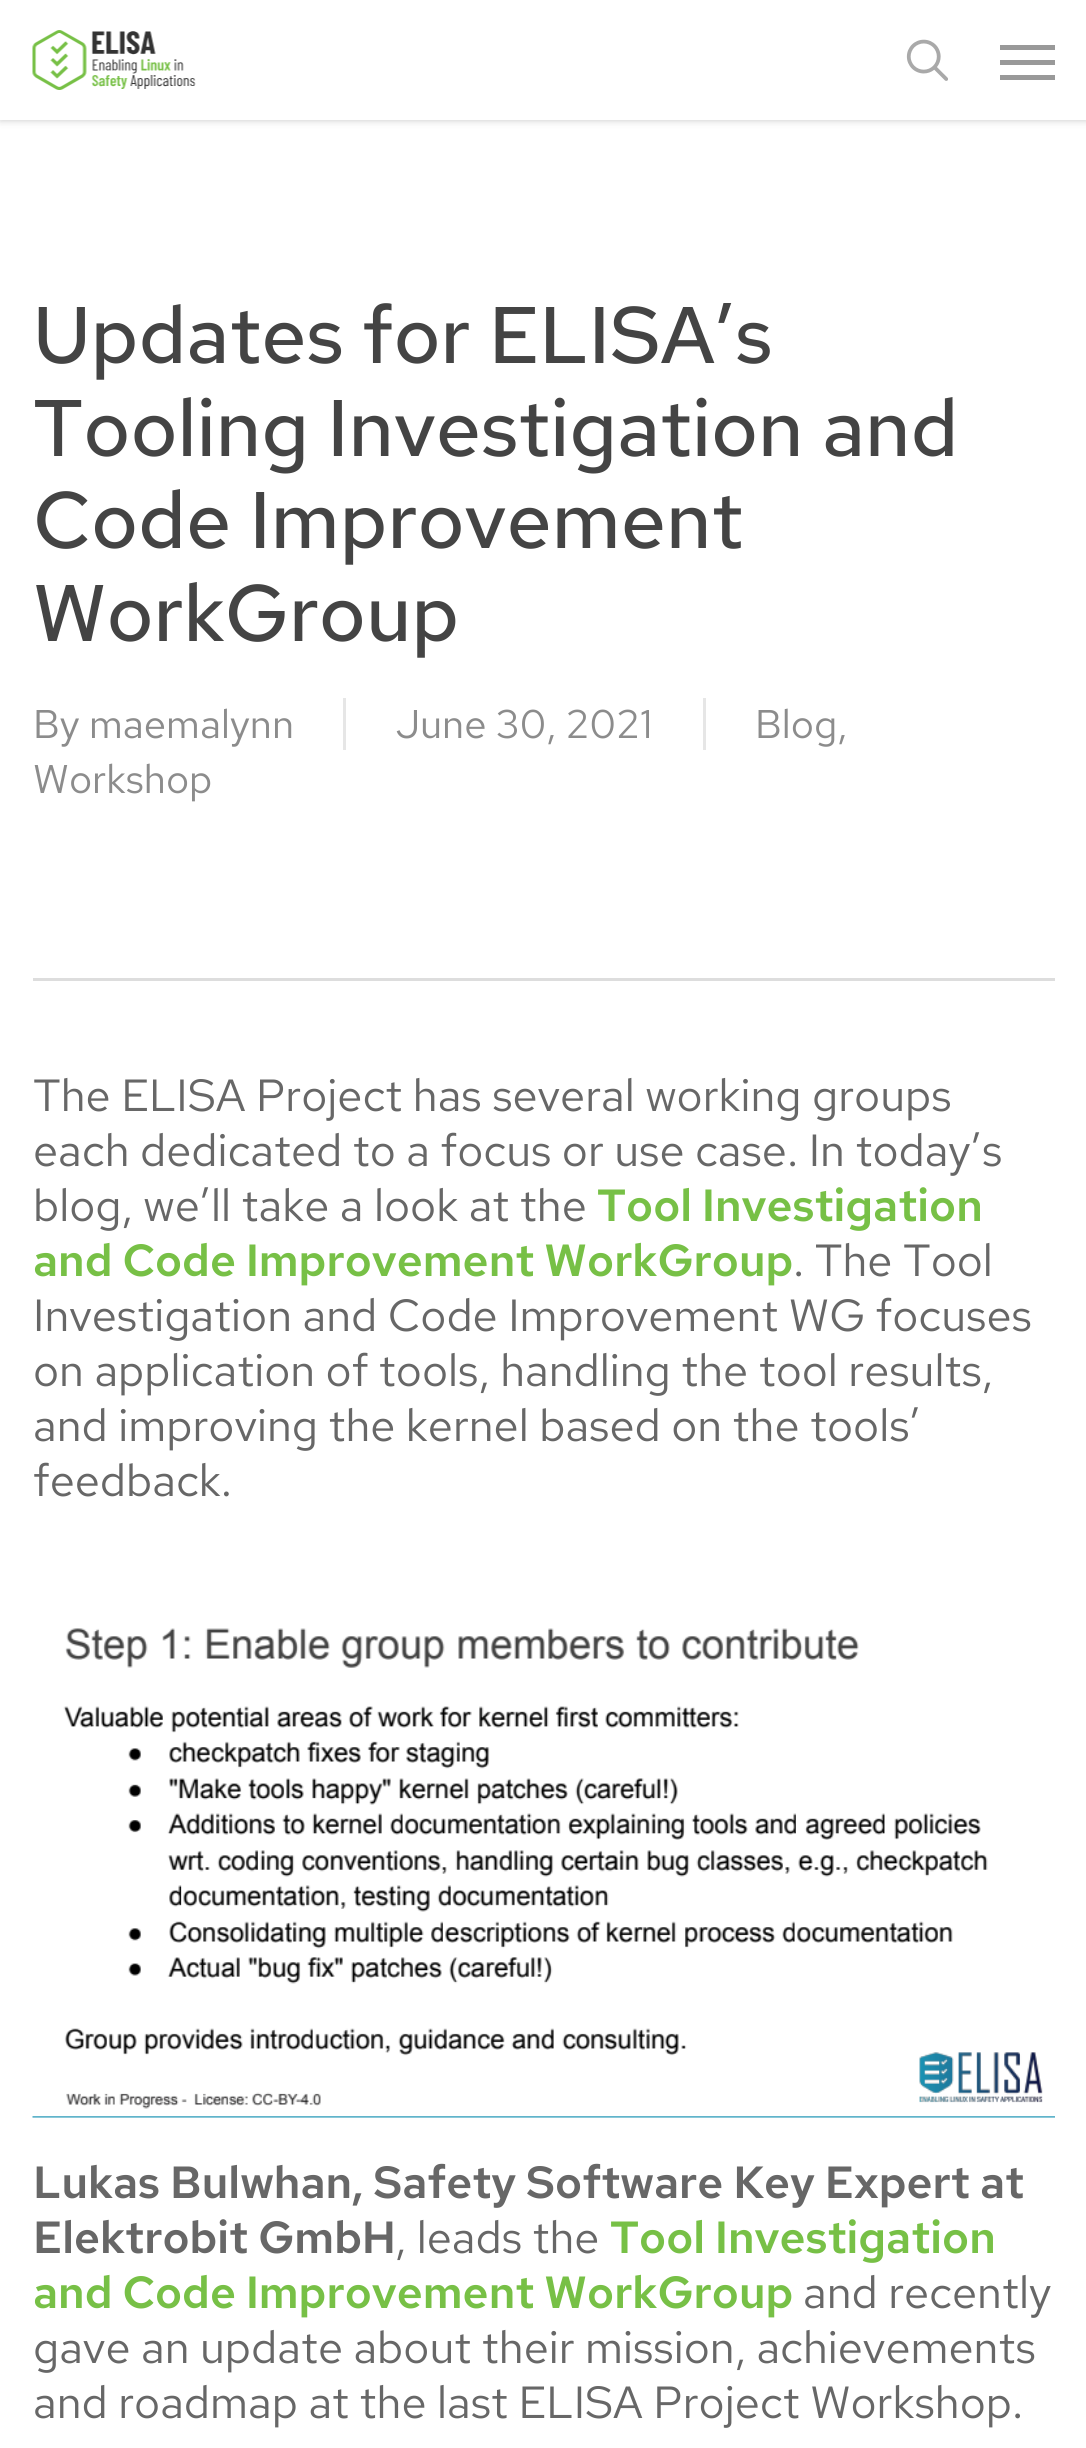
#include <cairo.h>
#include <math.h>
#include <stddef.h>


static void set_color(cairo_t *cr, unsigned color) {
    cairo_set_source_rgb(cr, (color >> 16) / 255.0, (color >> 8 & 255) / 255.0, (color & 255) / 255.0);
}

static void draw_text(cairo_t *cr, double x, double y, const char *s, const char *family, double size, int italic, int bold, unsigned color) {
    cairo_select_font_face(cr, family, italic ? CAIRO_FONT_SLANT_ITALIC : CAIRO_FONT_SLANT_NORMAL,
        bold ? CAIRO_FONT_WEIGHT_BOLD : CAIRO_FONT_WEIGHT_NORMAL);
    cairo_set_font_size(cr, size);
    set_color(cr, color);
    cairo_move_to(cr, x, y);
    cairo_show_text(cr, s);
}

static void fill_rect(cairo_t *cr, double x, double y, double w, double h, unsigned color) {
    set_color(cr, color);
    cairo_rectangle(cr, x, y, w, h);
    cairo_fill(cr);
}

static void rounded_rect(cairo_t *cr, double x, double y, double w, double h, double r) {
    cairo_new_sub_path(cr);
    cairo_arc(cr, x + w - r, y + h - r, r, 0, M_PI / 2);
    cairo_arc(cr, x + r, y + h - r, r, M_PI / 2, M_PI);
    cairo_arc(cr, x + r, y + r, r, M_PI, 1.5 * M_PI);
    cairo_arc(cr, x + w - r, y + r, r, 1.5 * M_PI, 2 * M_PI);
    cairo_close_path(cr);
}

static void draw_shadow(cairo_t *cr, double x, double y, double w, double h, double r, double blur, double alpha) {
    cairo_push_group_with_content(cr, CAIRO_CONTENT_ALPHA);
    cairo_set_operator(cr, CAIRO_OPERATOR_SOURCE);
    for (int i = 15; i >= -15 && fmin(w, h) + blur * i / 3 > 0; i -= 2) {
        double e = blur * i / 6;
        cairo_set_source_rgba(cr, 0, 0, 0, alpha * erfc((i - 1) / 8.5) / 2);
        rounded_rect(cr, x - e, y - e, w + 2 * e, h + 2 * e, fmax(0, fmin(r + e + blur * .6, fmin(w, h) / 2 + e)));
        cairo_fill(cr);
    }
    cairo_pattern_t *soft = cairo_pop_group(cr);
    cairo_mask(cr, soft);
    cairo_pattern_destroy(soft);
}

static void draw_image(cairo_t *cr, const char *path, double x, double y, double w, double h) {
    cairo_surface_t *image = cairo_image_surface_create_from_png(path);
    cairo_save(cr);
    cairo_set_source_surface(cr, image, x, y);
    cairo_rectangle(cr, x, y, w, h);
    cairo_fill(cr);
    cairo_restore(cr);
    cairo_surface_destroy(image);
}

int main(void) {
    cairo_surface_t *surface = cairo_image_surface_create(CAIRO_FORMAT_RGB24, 1086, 2448);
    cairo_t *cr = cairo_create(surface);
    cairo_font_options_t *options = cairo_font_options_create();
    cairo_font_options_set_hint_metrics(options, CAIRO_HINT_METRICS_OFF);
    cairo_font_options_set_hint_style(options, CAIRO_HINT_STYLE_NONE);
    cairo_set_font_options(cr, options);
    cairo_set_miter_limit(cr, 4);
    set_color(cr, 0xFFFFFF);
    cairo_paint(cr);
    set_color(cr, 0x000000);
    draw_shadow(cr, 0, 0, 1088, 120, 0, 4, 0.22);
    fill_rect(cr, 0, 0, 1086, 120, 0xFFFFFF);
    draw_image(cr, "assets/img1.png", 32, 30, 164, 60);
    draw_image(cr, "assets/img2.png", 906, 39, 42, 42);
    fill_rect(cr, 1000, 45, 55, 5, 0x999999);
    fill_rect(cr, 1000, 75, 55, 5, 0x999999);
    fill_rect(cr, 1000, 60, 55, 5, 0x999999);
    fill_rect(cr, 33, 978, 1022, 3, 0xDDDDDD);
    draw_text(cr, 33, 363, "Updates for ELISA’s", "Red Hat Text Medium", 80, 0, 0, 0x444444);
    draw_text(cr, 33, 456, "Tooling Investigation and", "Red Hat Text Medium", 80, 0, 0, 0x444444);
    draw_text(cr, 33, 548, "Code Improvement", "Red Hat Text Medium", 80, 0, 0, 0x444444);
    draw_text(cr, 33, 641, "WorkGroup", "Red Hat Text Medium", 80, 0, 0, 0x444444);
    draw_text(cr, 33, 738, "By", "Red Hat Text", 40, 0, 0, 0x8C8C8C);
    draw_text(cr, 89, 738, "maemalynn", "Red Hat Text", 40, 0, 0, 0x8C8C8C);
    draw_text(cr, 396, 738, "June 30, 2021", "Red Hat Text", 40, 0, 0, 0x8C8C8C);
    fill_rect(cr, 343, 698, 3, 52, 0xE6E6E6);
    draw_text(cr, 755, 738, "Blog,", "Red Hat Text", 40, 0, 0, 0x8C8C8C);
    fill_rect(cr, 703, 698, 3, 52, 0xE6E6E6);
    draw_text(cr, 33, 793, "Workshop", "Red Hat Text", 40, 0, 0, 0x8C8C8C);
    draw_text(cr, 33, 1111, "The ELISA Project has several working groups", "Red Hat Text", 45, 0, 0, 0x676767);
    draw_text(cr, 33, 1166, "each dedicated to a focus or use case. In today’s", "Red Hat Text", 45, 0, 0, 0x676767);
    draw_text(cr, 33, 1221, "blog, we’ll take a look at the", "Red Hat Text", 45, 0, 0, 0x676767);
    draw_text(cr, 597, 1221, "Tool Investigation", "Red Hat Text SemiBold", 45, 0, 0, 0x77C046);
    draw_text(cr, 33, 1276, "and Code Improvement WorkGroup", "Red Hat Text SemiBold", 45, 0, 0, 0x77C046);
    draw_text(cr, 793, 1276, ". The Tool", "Red Hat Text", 45, 0, 0, 0x676767);
    draw_text(cr, 33, 1331, "Investigation and Code Improvement WG focuses", "Red Hat Text", 45, 0, 0, 0x676767);
    draw_text(cr, 33, 1386, "on application of tools, handling the tool results,", "Red Hat Text", 45, 0, 0, 0x676767);
    draw_text(cr, 33, 1441, "and improving the kernel based on the tools’", "Red Hat Text", 45, 0, 0, 0x676767);
    draw_text(cr, 33, 1496, "feedback.", "Red Hat Text", 45, 0, 0, 0x676767);
    draw_image(cr, "assets/img3.png", 32, 1628, 1023, 490);
    draw_text(cr, 33, 2198, "Lukas Bulwhan, Safety Software Key Expert at", "Red Hat Text SemiBold", 45, 0, 0, 0x676767);
    draw_text(cr, 33, 2253, "Elektrobit GmbH", "Red Hat Text SemiBold", 45, 0, 0, 0x676767);
    draw_text(cr, 395, 2253, ", leads the", "Red Hat Text", 45, 0, 0, 0x676767);
    draw_text(cr, 610, 2253, "Tool Investigation", "Red Hat Text SemiBold", 45, 0, 0, 0x77C046);
    draw_text(cr, 33, 2308, "and Code Improvement WorkGroup", "Red Hat Text SemiBold", 45, 0, 0, 0x77C046);
    draw_text(cr, 803, 2308, "and recently", "Red Hat Text", 45, 0, 0, 0x676767);
    draw_text(cr, 33, 2363, "gave an update about their mission, achievements", "Red Hat Text", 45, 0, 0, 0x676767);
    draw_text(cr, 33, 2418, "and roadmap at the last ELISA Project Workshop.", "Red Hat Text", 45, 0, 0, 0x676767);
    cairo_surface_write_to_png(surface, "output.png");
    cairo_font_options_destroy(options);
    cairo_destroy(cr);
    cairo_surface_destroy(surface);
    return 0;
}
